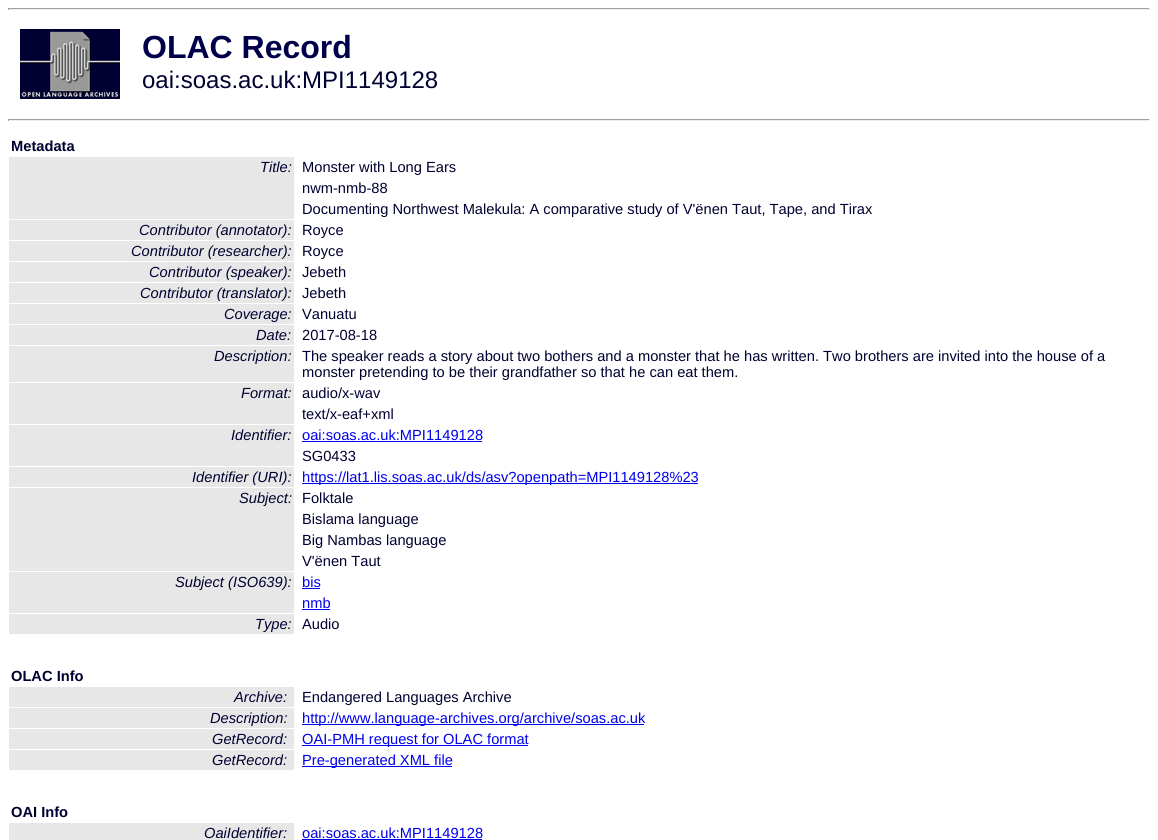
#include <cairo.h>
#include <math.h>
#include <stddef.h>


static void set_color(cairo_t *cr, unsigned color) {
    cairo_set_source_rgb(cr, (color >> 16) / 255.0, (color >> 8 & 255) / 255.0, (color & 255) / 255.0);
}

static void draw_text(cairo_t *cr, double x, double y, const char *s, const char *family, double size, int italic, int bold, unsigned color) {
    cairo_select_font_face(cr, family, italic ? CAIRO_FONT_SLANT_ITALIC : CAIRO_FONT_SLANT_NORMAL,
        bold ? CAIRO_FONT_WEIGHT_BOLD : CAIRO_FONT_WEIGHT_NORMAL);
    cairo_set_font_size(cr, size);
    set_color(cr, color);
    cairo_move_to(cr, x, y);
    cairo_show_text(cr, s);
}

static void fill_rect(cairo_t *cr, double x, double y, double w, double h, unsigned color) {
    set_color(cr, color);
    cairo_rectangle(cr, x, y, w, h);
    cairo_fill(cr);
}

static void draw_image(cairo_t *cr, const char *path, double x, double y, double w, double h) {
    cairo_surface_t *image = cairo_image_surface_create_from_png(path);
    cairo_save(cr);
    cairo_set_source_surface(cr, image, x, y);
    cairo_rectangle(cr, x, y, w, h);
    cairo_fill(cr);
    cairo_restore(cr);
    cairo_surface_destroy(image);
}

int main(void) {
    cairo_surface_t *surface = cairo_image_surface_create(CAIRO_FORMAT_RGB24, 1158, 840);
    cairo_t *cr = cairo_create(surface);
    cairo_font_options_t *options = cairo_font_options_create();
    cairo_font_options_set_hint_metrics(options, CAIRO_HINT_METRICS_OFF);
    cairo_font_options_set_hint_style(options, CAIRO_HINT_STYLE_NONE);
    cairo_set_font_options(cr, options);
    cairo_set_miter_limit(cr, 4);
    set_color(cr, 0xFFFFFF);
    cairo_paint(cr);
    fill_rect(cr, 8, 8, 1142, 1, 0x9F9F9F);
    fill_rect(cr, 1149, 8, 1, 2, 0xEEEEEE);
    fill_rect(cr, 8, 9, 1142, 1, 0xEEEEEE);
    fill_rect(cr, 8, 8, 1, 2, 0x9F9F9F);
    draw_image(cr, "assets/img1.png", 20, 29, 100, 70);
    draw_text(cr, 142, 58, "OLAC Record", "Liberation Sans", 32, 0, 1, 0x00004A);
    draw_text(cr, 142, 88, "oai:soas.ac.uk:MPI1149128", "Liberation Sans", 24, 0, 0, 0x000030);
    fill_rect(cr, 8, 119, 1142, 1, 0x9F9F9F);
    fill_rect(cr, 1149, 119, 1, 2, 0xEEEEEE);
    fill_rect(cr, 8, 120, 1142, 1, 0xEEEEEE);
    fill_rect(cr, 8, 119, 1, 2, 0x9F9F9F);
    draw_text(cr, 11, 151, "Metadata", "Liberation Sans", 14.67, 0, 1, 0x000030);
    fill_rect(cr, 9, 157, 285, 62, 0xE7E7E7);
    draw_text(cr, 260, 172, "Title:", "Liberation Sans", 14.67, 1, 0, 0x000030);
    draw_text(cr, 302, 172, "Monster with Long Ears", "Liberation Sans", 14.67, 0, 0, 0x000030);
    draw_text(cr, 302, 193, "nwm-nmb-88", "Liberation Sans", 14.67, 0, 0, 0x000030);
    draw_text(cr, 302, 214, "Documenting Northwest Malekula: A comparative study of V'ënen Taut, Tape, and Tirax", "Liberation Sans", 14.67, 0, 0, 0x000030);
    fill_rect(cr, 9, 220, 285, 20, 0xE7E7E7);
    draw_text(cr, 139, 235, "Contributor (annotator):", "Liberation Sans", 14.67, 1, 0, 0x000030);
    draw_text(cr, 302, 235, "Royce", "Liberation Sans", 14.67, 0, 0, 0x000030);
    fill_rect(cr, 9, 241, 285, 20, 0xE7E7E7);
    draw_text(cr, 131, 256, "Contributor (researcher):", "Liberation Sans", 14.67, 1, 0, 0x000030);
    draw_text(cr, 302, 256, "Royce", "Liberation Sans", 14.67, 0, 0, 0x000030);
    fill_rect(cr, 9, 262, 285, 20, 0xE7E7E7);
    draw_text(cr, 149, 277, "Contributor (speaker):", "Liberation Sans", 14.67, 1, 0, 0x000030);
    draw_text(cr, 302, 277, "Jebeth", "Liberation Sans", 14.67, 0, 0, 0x000030);
    fill_rect(cr, 9, 283, 285, 20, 0xE7E7E7);
    draw_text(cr, 140, 298, "Contributor (translator):", "Liberation Sans", 14.67, 1, 0, 0x000030);
    draw_text(cr, 302, 298, "Jebeth", "Liberation Sans", 14.67, 0, 0, 0x000030);
    fill_rect(cr, 9, 304, 285, 20, 0xE7E7E7);
    draw_text(cr, 224, 319, "Coverage:", "Liberation Sans", 14.67, 1, 0, 0x000030);
    draw_text(cr, 302, 319, "Vanuatu", "Liberation Sans", 14.67, 0, 0, 0x000030);
    fill_rect(cr, 9, 325, 285, 20, 0xE7E7E7);
    draw_text(cr, 256, 340, "Date:", "Liberation Sans", 14.67, 1, 0, 0x000030);
    draw_text(cr, 302, 340, "2017-08-18", "Liberation Sans", 14.67, 0, 0, 0x000030);
    fill_rect(cr, 9, 346, 285, 36, 0xE7E7E7);
    draw_text(cr, 214, 361, "Description:", "Liberation Sans", 14.67, 1, 0, 0x000030);
    draw_text(cr, 302, 361, "The speaker reads a story about two bothers and a monster that he has written. Two brothers are invited into the house of a", "Liberation Sans", 14.67, 0, 0, 0x000030);
    draw_text(cr, 302, 377, "monster pretending to be their grandfather so that he can eat them.", "Liberation Sans", 14.67, 0, 0, 0x000030);
    fill_rect(cr, 9, 383, 285, 41, 0xE7E7E7);
    draw_text(cr, 241, 398, "Format:", "Liberation Sans", 14.67, 1, 0, 0x000030);
    draw_text(cr, 302, 398, "audio/x-wav", "Liberation Sans", 14.67, 0, 0, 0x000030);
    draw_text(cr, 302, 419, "text/x-eaf+xml", "Liberation Sans", 14.67, 0, 0, 0x000030);
    fill_rect(cr, 9, 425, 285, 41, 0xE7E7E7);
    draw_text(cr, 231, 440, "Identifier:", "Liberation Sans", 14.67, 1, 0, 0x000030);
    draw_text(cr, 302, 440, "oai:soas.ac.uk:MPI1149128", "Liberation Sans", 14.67, 0, 0, 0x0000EE);
    fill_rect(cr, 302, 441, 180, 1, 0x0000EE);
    draw_text(cr, 302, 461, "SG0433", "Liberation Sans", 14.67, 0, 0, 0x000030);
    fill_rect(cr, 9, 467, 285, 20, 0xE7E7E7);
    draw_text(cr, 192, 482, "Identifier (URI):", "Liberation Sans", 14.67, 1, 0, 0x000030);
    fill_rect(cr, 302, 483, 396, 1, 0x0000EE);
    draw_text(cr, 302, 482, "https://lat1.lis.soas.ac.uk/ds/asv?openpath=MPI1149128%23", "Liberation Sans", 14.67, 0, 0, 0x0000EE);
    fill_rect(cr, 9, 488, 285, 83, 0xE7E7E7);
    draw_text(cr, 239, 503, "Subject:", "Liberation Sans", 14.67, 1, 0, 0x000030);
    draw_text(cr, 302, 503, "Folktale", "Liberation Sans", 14.67, 0, 0, 0x000030);
    draw_text(cr, 302, 524, "Bislama language", "Liberation Sans", 14.67, 0, 0, 0x000030);
    draw_text(cr, 302, 545, "Big Nambas language", "Liberation Sans", 14.67, 0, 0, 0x000030);
    draw_text(cr, 302, 566, "V'ënen Taut", "Liberation Sans", 14.67, 0, 0, 0x000030);
    fill_rect(cr, 9, 572, 285, 41, 0xE7E7E7);
    draw_text(cr, 175, 587, "Subject (ISO639):", "Liberation Sans", 14.67, 1, 0, 0x000030);
    draw_text(cr, 302, 587, "bis", "Liberation Sans", 14.67, 0, 0, 0x0000EE);
    fill_rect(cr, 302, 588, 18, 1, 0x0000EE);
    draw_text(cr, 302, 608, "nmb", "Liberation Sans", 14.67, 0, 0, 0x0000EE);
    fill_rect(cr, 302, 609, 28, 1, 0x0000EE);
    fill_rect(cr, 9, 614, 285, 20, 0xE7E7E7);
    draw_text(cr, 255, 629, "Type:", "Liberation Sans", 14.67, 1, 0, 0x000030);
    draw_text(cr, 302, 629, "Audio", "Liberation Sans", 14.67, 0, 0, 0x000030);
    draw_text(cr, 11, 681, "OLAC Info", "Liberation Sans", 14.67, 0, 1, 0x000030);
    fill_rect(cr, 9, 687, 285, 20, 0xE7E7E7);
    draw_text(cr, 234, 702, "Archive:", "Liberation Sans", 14.67, 1, 0, 0x000030);
    draw_text(cr, 302, 702, "Endangered Languages Archive", "Liberation Sans", 14.67, 0, 0, 0x000030);
    fill_rect(cr, 9, 708, 285, 20, 0xE7E7E7);
    draw_text(cr, 210, 723, "Description:", "Liberation Sans", 14.67, 1, 0, 0x000030);
    fill_rect(cr, 302, 724, 342, 1, 0x0000EE);
    draw_text(cr, 302, 723, "http://www.language-archives.org/archive/soas.ac.uk", "Liberation Sans", 14.67, 0, 0, 0x0000EE);
    fill_rect(cr, 9, 729, 285, 20, 0xE7E7E7);
    draw_text(cr, 212, 744, "GetRecord:", "Liberation Sans", 14.67, 1, 0, 0x000030);
    fill_rect(cr, 302, 745, 226, 1, 0x0000EE);
    draw_text(cr, 302, 744, "OAI-PMH request for OLAC format", "Liberation Sans", 14.67, 0, 0, 0x0000EE);
    fill_rect(cr, 9, 750, 285, 20, 0xE7E7E7);
    draw_text(cr, 212, 765, "GetRecord:", "Liberation Sans", 14.67, 1, 0, 0x000030);
    fill_rect(cr, 302, 766, 150, 1, 0x0000EE);
    draw_text(cr, 302, 765, "Pre-generated XML file", "Liberation Sans", 14.67, 0, 0, 0x0000EE);
    draw_text(cr, 11, 817, "OAI Info", "Liberation Sans", 14.67, 0, 1, 0x000030);
    fill_rect(cr, 9, 823, 285, 17, 0xE7E7E7);
    draw_text(cr, 204, 838, "OaiIdentifier:", "Liberation Sans", 14.67, 1, 0, 0x000030);
    draw_text(cr, 302, 838, "oai:soas.ac.uk:MPI1149128", "Liberation Sans", 14.67, 0, 0, 0x0000EE);
    fill_rect(cr, 302, 839, 180, 1, 0x0000EE);
    cairo_surface_write_to_png(surface, "output.png");
    cairo_font_options_destroy(options);
    cairo_destroy(cr);
    cairo_surface_destroy(surface);
    return 0;
}
